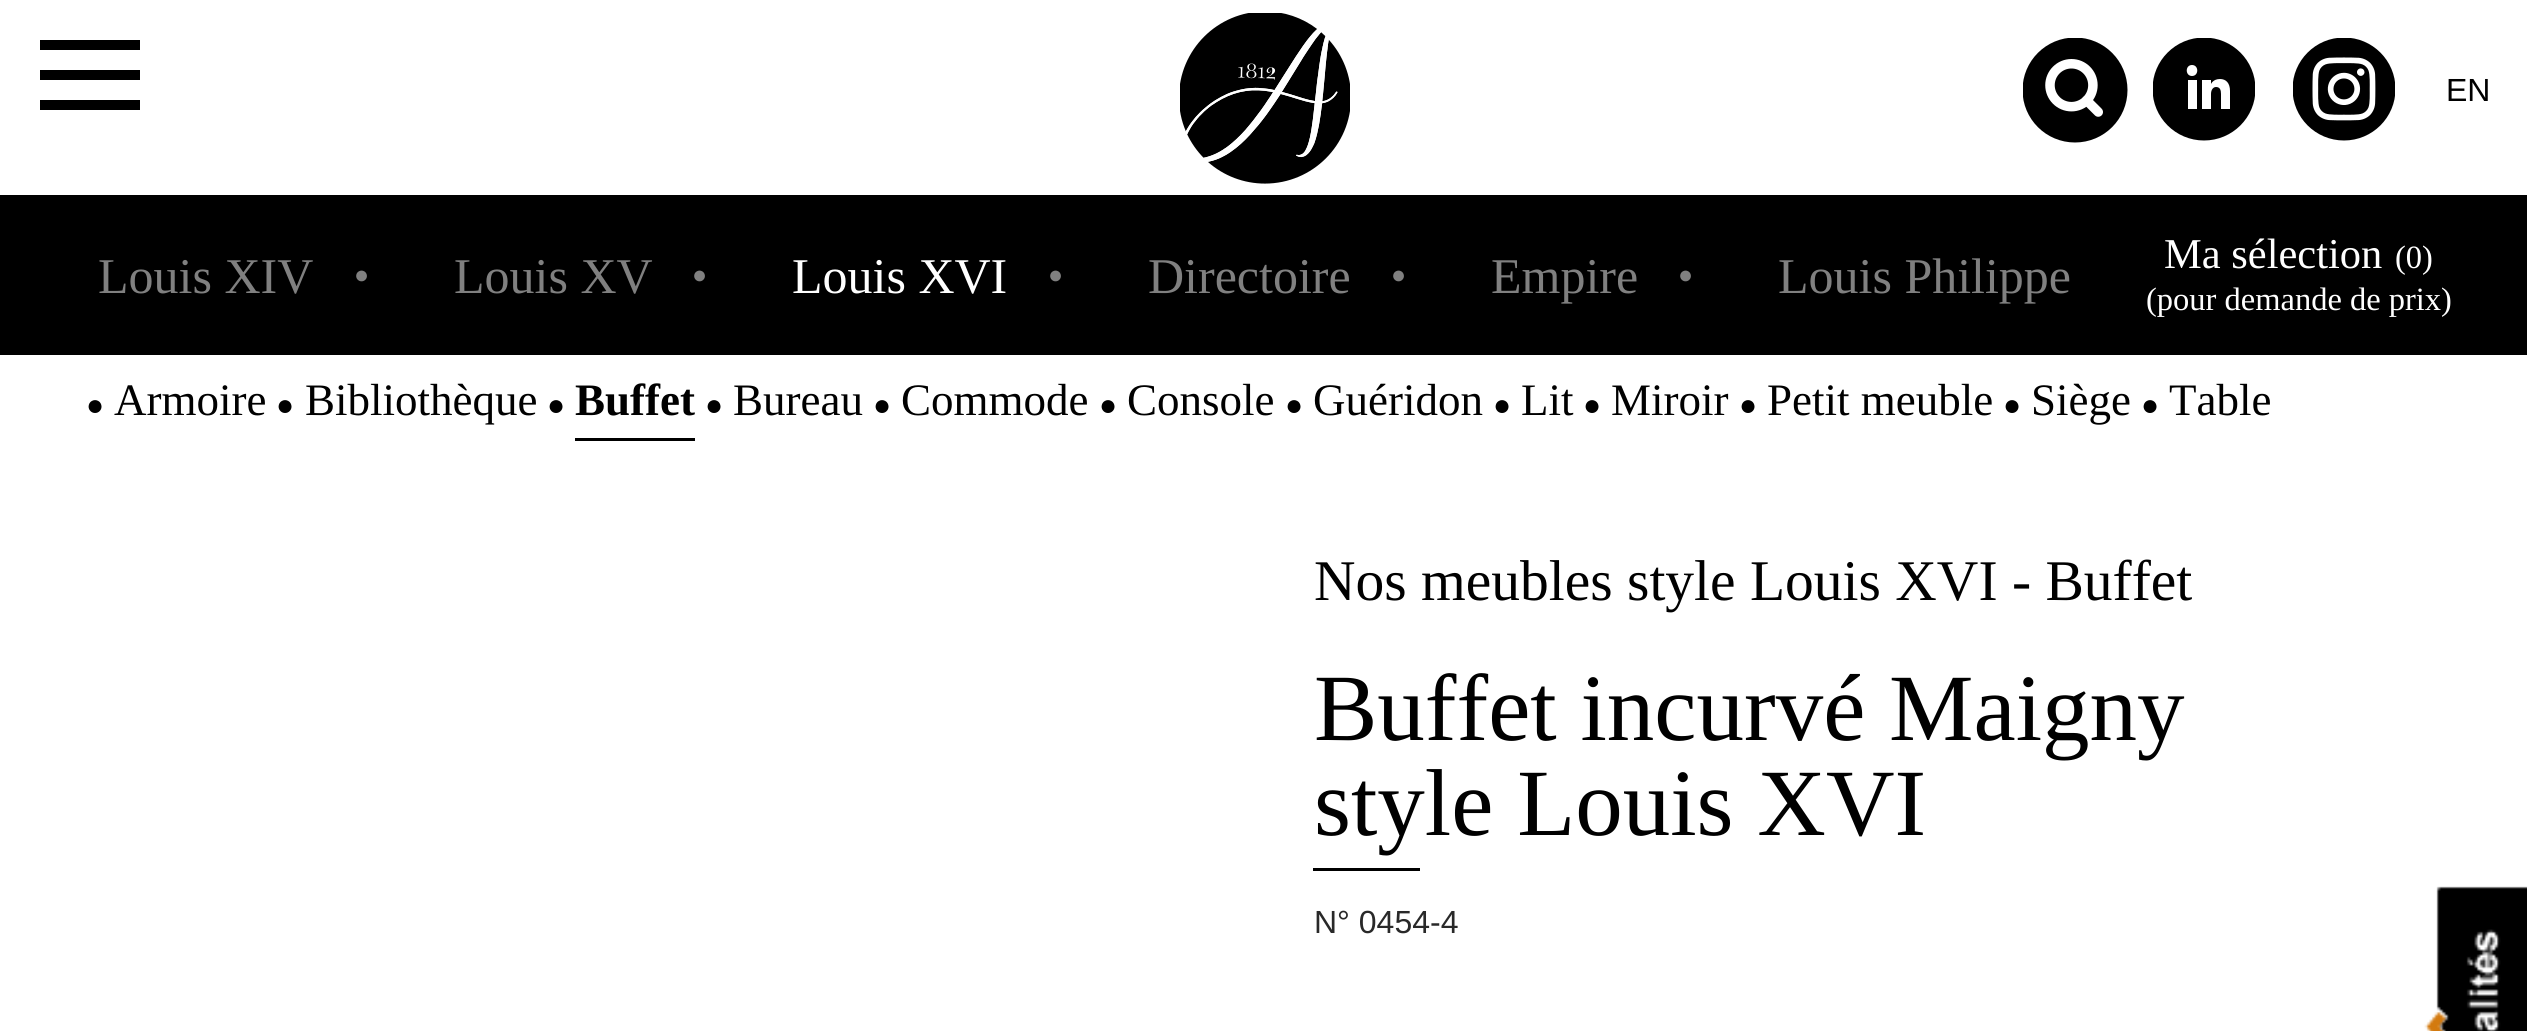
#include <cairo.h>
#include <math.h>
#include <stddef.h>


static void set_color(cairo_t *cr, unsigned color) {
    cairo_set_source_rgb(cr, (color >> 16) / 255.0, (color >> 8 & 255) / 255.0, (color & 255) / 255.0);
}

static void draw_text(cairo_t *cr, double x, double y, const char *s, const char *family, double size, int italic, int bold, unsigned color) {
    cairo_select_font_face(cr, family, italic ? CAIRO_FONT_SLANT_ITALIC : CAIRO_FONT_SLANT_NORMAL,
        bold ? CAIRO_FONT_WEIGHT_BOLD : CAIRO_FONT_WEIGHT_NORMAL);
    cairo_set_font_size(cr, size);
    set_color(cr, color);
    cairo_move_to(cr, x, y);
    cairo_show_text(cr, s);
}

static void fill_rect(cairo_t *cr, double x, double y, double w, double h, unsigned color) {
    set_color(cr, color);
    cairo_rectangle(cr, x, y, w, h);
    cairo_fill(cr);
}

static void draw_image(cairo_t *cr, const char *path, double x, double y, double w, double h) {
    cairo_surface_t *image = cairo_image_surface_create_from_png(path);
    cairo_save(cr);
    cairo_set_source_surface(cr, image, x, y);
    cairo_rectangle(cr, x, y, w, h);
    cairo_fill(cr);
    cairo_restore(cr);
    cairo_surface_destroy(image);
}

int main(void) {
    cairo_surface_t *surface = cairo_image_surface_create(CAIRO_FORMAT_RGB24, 2527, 1031);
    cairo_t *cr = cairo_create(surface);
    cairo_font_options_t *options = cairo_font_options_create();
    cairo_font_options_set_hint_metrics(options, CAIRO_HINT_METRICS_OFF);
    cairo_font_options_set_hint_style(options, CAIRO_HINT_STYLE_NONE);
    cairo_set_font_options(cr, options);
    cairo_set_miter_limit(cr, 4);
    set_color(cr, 0xFFFFFF);
    cairo_paint(cr);
    fill_rect(cr, 40, 40, 100, 10, 0x000000);
    fill_rect(cr, 40, 70, 100, 10, 0x000000);
    fill_rect(cr, 40, 100, 100, 10, 0x000000);
    draw_image(cr, "assets/img1.png", 1180, 13, 170, 171);
    draw_image(cr, "assets/img2.png", 2023, 38, 105, 105);
    cairo_save(cr);
    cairo_rectangle(cr, 2153, 38, 102, 105);
    cairo_clip(cr);
    cairo_arc(cr, 2204, 89, 51.5, 0, 2 * M_PI);
    cairo_fill(cr);
    cairo_restore(cr);
    set_color(cr, 0xFFFFFF);
    cairo_set_fill_rule(cr, CAIRO_FILL_RULE_EVEN_ODD);
    cairo_new_path(cr);
    cairo_move_to(cr, 2230, 109);
    cairo_line_to(cr, 2221, 109);
    cairo_line_to(cr, 2221, 94);
    cairo_curve_to(cr, 2221, 90, 2220, 87, 2216, 87);
    cairo_curve_to(cr, 2213, 87, 2211, 90, 2211, 94);
    cairo_line_to(cr, 2211, 109);
    cairo_line_to(cr, 2202, 109);
    cairo_line_to(cr, 2202, 80);
    cairo_line_to(cr, 2211, 80);
    cairo_line_to(cr, 2211, 84);
    cairo_curve_to(cr, 2211, 84, 2213, 79, 2220, 79);
    cairo_curve_to(cr, 2226, 79, 2230, 83, 2230, 91);
    cairo_close_path(cr);
    cairo_move_to(cr, 2192, 76);
    cairo_curve_to(cr, 2185, 76, 2185, 65, 2192, 65);
    cairo_curve_to(cr, 2199, 65, 2199, 76, 2192, 76);
    cairo_close_path(cr);
    cairo_move_to(cr, 2188, 109);
    cairo_line_to(cr, 2197, 109);
    cairo_line_to(cr, 2197, 80);
    cairo_line_to(cr, 2188, 80);
    cairo_close_path(cr);
    cairo_fill(cr);
    draw_image(cr, "assets/img3.png", 2293, 38, 102, 103);
    draw_text(cr, 2446, 101, "EN", "Liberation Sans", 32, 0, 0, 0x000000);
    fill_rect(cr, 0, 195, 2527, 160, 0x000000);
    draw_text(cr, 98, 293, "Louis XIV", "Liberation Serif", 50, 0, 0, 0x808080);
    draw_text(cr, 354, 283, "●", "Liberation Serif", 25, 0, 0, 0x808080);
    draw_text(cr, 454, 293, "Louis XV", "Liberation Serif", 50, 0, 0, 0x808080);
    draw_text(cr, 692, 283, "●", "Liberation Serif", 25, 0, 0, 0x808080);
    draw_text(cr, 792, 293, "Louis XVI", "Liberation Serif", 50, 0, 0, 0xFFFFFF);
    draw_text(cr, 1048, 283, "●", "Liberation Serif", 25, 0, 0, 0x808080);
    draw_text(cr, 1148, 293, "Directoire", "Liberation Serif", 50, 0, 0, 0x808080);
    draw_text(cr, 1391, 283, "●", "Liberation Serif", 25, 0, 0, 0x808080);
    draw_text(cr, 1491, 293, "Empire", "Liberation Serif", 50, 0, 0, 0x808080);
    draw_text(cr, 1678, 283, "●", "Liberation Serif", 25, 0, 0, 0x808080);
    draw_text(cr, 1778, 293, "Louis Philippe", "Liberation Serif", 50, 0, 0, 0x808080);
    draw_text(cr, 2164, 268, "Ma sélection", "Liberation Serif", 42.5, 0, 0, 0xFFFFFF);
    draw_text(cr, 2395, 268, "(0)", "Liberation Serif", 32.5, 0, 0, 0xFFFFFF);
    draw_text(cr, 2146, 310, "(pour demande de prix)", "Liberation Serif", 32.5, 0, 0, 0xFFFFFF);
    draw_text(cr, 86, 415, "●", "Liberation Sans", 30, 0, 0, 0x000000);
    draw_text(cr, 114, 415, "Armoire", "Liberation Serif", 45, 0, 0, 0x000000);
    draw_text(cr, 276, 415, "●", "Liberation Sans", 30, 0, 0, 0x000000);
    draw_text(cr, 305, 415, "Bibliothèque", "Liberation Serif", 45, 0, 0, 0x000000);
    draw_text(cr, 547, 415, "●", "Liberation Sans", 30, 0, 0, 0x000000);
    draw_text(cr, 575, 415, "Buffet", "Liberation Serif", 45, 0, 1, 0x000000);
    fill_rect(cr, 575, 438, 120, 3, 0x000000);
    draw_text(cr, 705, 415, "●", "Liberation Sans", 30, 0, 0, 0x000000);
    draw_text(cr, 733, 415, "Bureau", "Liberation Serif", 45, 0, 0, 0x000000);
    draw_text(cr, 873, 415, "●", "Liberation Sans", 30, 0, 0, 0x000000);
    draw_text(cr, 901, 415, "Commode", "Liberation Serif", 45, 0, 0, 0x000000);
    draw_text(cr, 1099, 415, "●", "Liberation Sans", 30, 0, 0, 0x000000);
    draw_text(cr, 1127, 415, "Console", "Liberation Serif", 45, 0, 0, 0x000000);
    draw_text(cr, 1285, 415, "●", "Liberation Sans", 30, 0, 0, 0x000000);
    draw_text(cr, 1313, 415, "Guéridon", "Liberation Serif", 45, 0, 0, 0x000000);
    draw_text(cr, 1493, 415, "●", "Liberation Sans", 30, 0, 0, 0x000000);
    draw_text(cr, 1521, 415, "Lit", "Liberation Serif", 45, 0, 0, 0x000000);
    draw_text(cr, 1583, 415, "●", "Liberation Sans", 30, 0, 0, 0x000000);
    draw_text(cr, 1611, 415, "Miroir", "Liberation Serif", 45, 0, 0, 0x000000);
    draw_text(cr, 1739, 415, "●", "Liberation Sans", 30, 0, 0, 0x000000);
    draw_text(cr, 1767, 415, "Petit meuble", "Liberation Serif", 45, 0, 0, 0x000000);
    draw_text(cr, 2003, 415, "●", "Liberation Sans", 30, 0, 0, 0x000000);
    draw_text(cr, 2031, 415, "Siège", "Liberation Serif", 45, 0, 0, 0x000000);
    draw_text(cr, 2141, 415, "●", "Liberation Sans", 30, 0, 0, 0x000000);
    draw_text(cr, 2169, 415, "Table", "Liberation Serif", 45, 0, 0, 0x000000);
    draw_text(cr, 1314, 600, "Nos meubles style Louis XVI - Buffet", "Liberation Serif", 57.5, 0, 0, 0x000000);
    draw_text(cr, 1314, 740, "Buffet incurvé Maigny", "Liberation Serif", 95, 0, 0, 0x000000);
    draw_text(cr, 1314, 835, "style Louis XVI", "Liberation Serif", 95, 0, 0, 0x000000);
    fill_rect(cr, 1313, 868, 107, 3, 0x000000);
    draw_text(cr, 1314, 933, "N° 0454-4", "Liberation Sans", 32, 0, 0, 0x292929);
    draw_image(cr, "assets/img4.png", 2424, 886, 103, 145);
    cairo_surface_write_to_png(surface, "output.png");
    cairo_font_options_destroy(options);
    cairo_destroy(cr);
    cairo_surface_destroy(surface);
    return 0;
}
